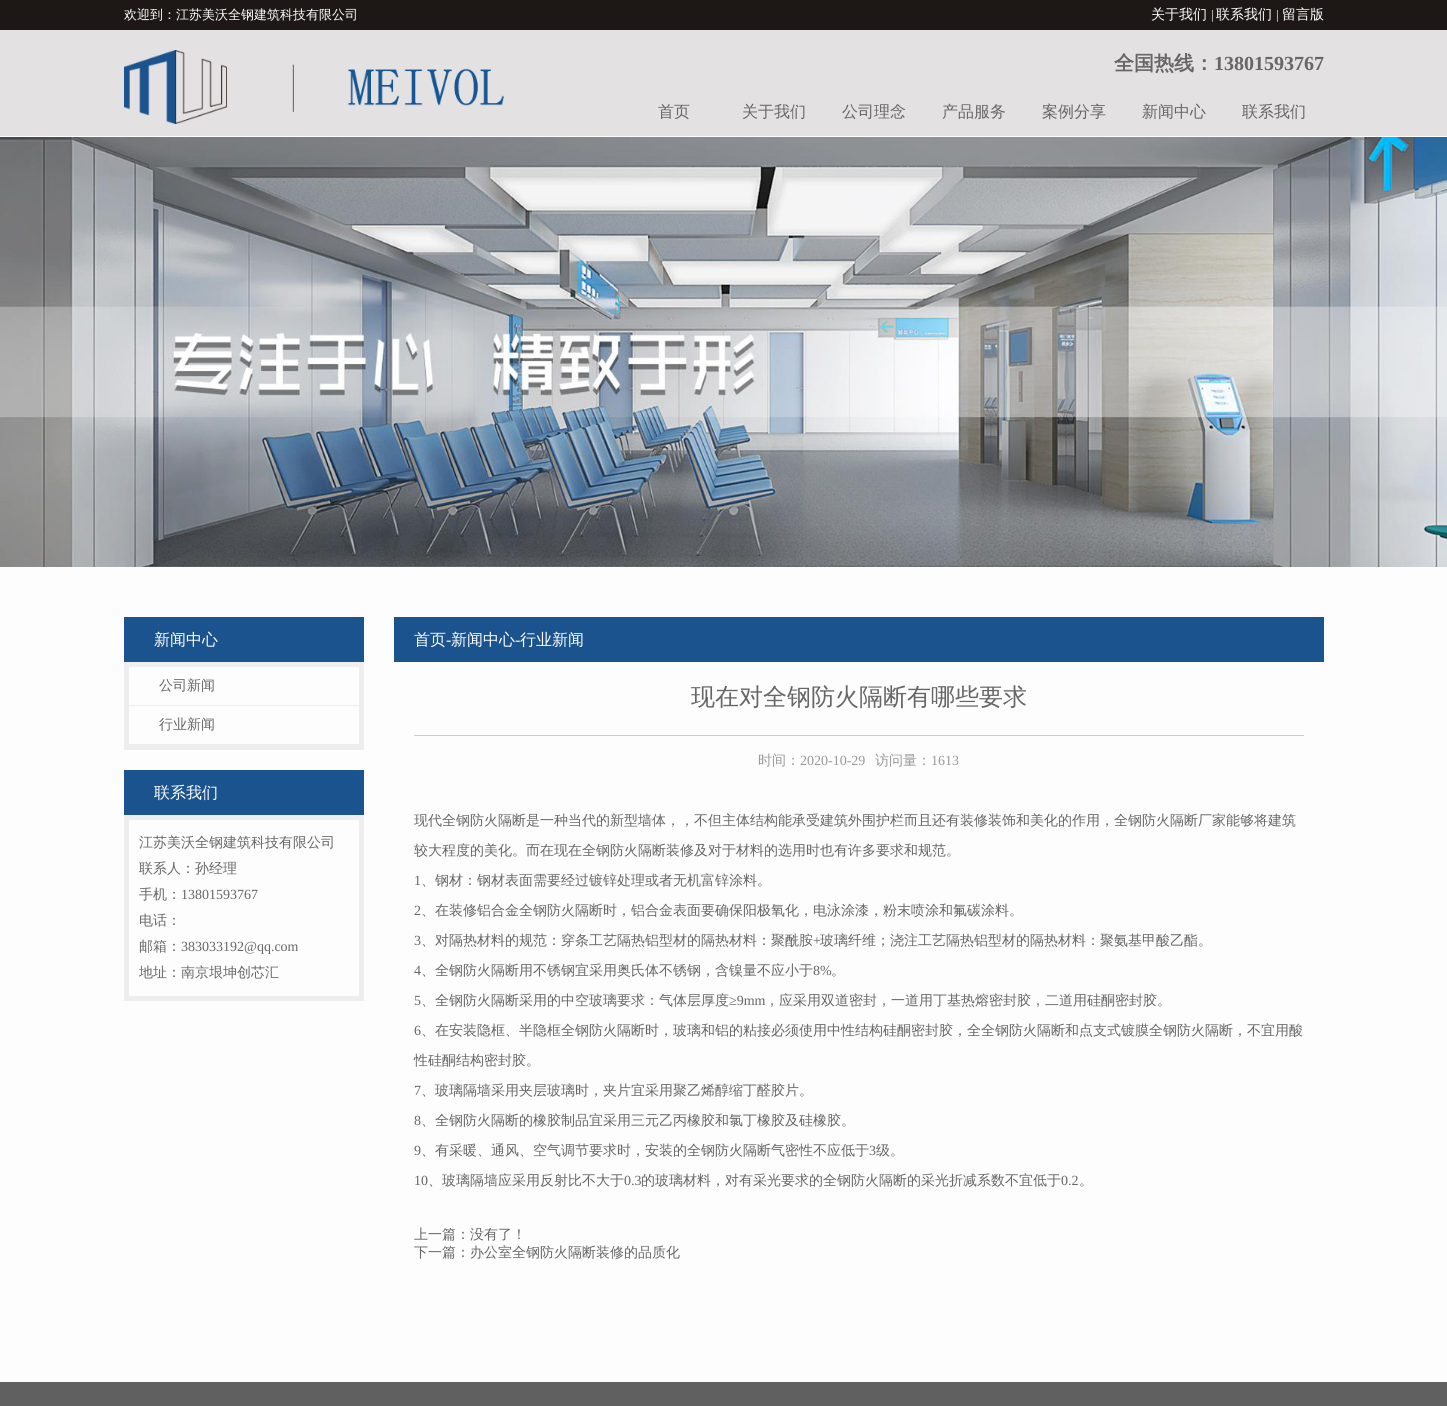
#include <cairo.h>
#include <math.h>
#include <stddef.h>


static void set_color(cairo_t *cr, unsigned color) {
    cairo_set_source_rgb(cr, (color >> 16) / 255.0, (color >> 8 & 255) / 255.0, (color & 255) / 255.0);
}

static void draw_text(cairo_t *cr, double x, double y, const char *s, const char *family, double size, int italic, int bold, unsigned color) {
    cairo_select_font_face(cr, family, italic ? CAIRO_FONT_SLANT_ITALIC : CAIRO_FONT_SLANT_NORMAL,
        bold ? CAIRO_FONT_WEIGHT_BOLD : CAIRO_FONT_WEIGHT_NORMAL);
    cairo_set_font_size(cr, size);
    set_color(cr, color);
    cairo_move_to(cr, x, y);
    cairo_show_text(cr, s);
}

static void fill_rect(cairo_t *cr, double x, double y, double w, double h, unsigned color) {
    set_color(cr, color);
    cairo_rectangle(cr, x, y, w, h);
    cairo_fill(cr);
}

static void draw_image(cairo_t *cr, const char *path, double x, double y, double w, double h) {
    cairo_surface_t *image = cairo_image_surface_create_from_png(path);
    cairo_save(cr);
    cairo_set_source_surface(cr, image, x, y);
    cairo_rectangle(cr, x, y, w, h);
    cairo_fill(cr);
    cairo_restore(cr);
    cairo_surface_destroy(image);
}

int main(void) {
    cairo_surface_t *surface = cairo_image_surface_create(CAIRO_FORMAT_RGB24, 1447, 1406);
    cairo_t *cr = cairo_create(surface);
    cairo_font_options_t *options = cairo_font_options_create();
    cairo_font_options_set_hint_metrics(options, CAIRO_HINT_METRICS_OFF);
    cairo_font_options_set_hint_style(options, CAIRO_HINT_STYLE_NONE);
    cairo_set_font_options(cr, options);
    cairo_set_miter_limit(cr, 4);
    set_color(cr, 0xFDFDFD);
    cairo_paint(cr);
    fill_rect(cr, 0, 30, 1447, 106, 0xE3E1E2);
    fill_rect(cr, 0, 0, 1447, 30, 0x1D1815);
    draw_text(cr, 124, 19, "欢迎到：江苏美沃全钢建筑科技有限公司", "WenQuanYi Zen Hei Medium", 13, 0, 0, 0xFFFFFF);
    draw_text(cr, 1151, 19, "关于我们", "WenQuanYi Zen Hei Medium", 14, 0, 0, 0xFFFFFF);
    draw_text(cr, 1211, 19, "|", "Liberation Serif", 13, 0, 0, 0xFFFFFF);
    draw_text(cr, 1216, 19, "联系我们", "WenQuanYi Zen Hei Medium", 14, 0, 0, 0xFFFFFF);
    draw_text(cr, 1276, 19, "|", "Liberation Serif", 13, 0, 0, 0xFFFFFF);
    draw_text(cr, 1282, 19, "留言版", "WenQuanYi Zen Hei Medium", 14, 0, 0, 0xFFFFFF);
    draw_image(cr, "assets/img1.png", 124, 50, 380, 74);
    draw_text(cr, 1114, 70, "全国热线：", "WenQuanYi Zen Hei", 20, 0, 1, 0x666666);
    draw_text(cr, 1214, 70, "13801593767", "Liberation Serif", 20, 0, 1, 0x666666);
    draw_text(cr, 658, 117, "首页", "WenQuanYi Zen Hei Medium", 16, 0, 0, 0x666666);
    draw_text(cr, 742, 117, "关于我们", "WenQuanYi Zen Hei Medium", 16, 0, 0, 0x666666);
    draw_text(cr, 842, 117, "公司理念", "WenQuanYi Zen Hei Medium", 16, 0, 0, 0x666666);
    draw_text(cr, 942, 117, "产品服务", "WenQuanYi Zen Hei Medium", 16, 0, 0, 0x666666);
    draw_text(cr, 1042, 117, "案例分享", "WenQuanYi Zen Hei Medium", 16, 0, 0, 0x666666);
    draw_text(cr, 1142, 117, "新闻中心", "WenQuanYi Zen Hei Medium", 16, 0, 0, 0x666666);
    draw_text(cr, 1242, 117, "联系我们", "WenQuanYi Zen Hei Medium", 16, 0, 0, 0x666666);
    draw_image(cr, "assets/img2.png", 0, 137, 1447, 430);
    fill_rect(cr, 124, 617, 240, 45, 0x1A538E);
    draw_text(cr, 154, 645, "新闻中心", "WenQuanYi Zen Hei Medium", 16, 0, 0, 0xFFFFFF);
    cairo_rectangle(cr, 126.5, 664.5, 235, 83);
    set_color(cr, 0xEEEEEE);
    cairo_set_line_width(cr, 5);
    cairo_stroke(cr);
    fill_rect(cr, 129, 705, 230, 1, 0xEEEEEE);
    draw_text(cr, 159, 690, "公司新闻", "WenQuanYi Zen Hei Medium", 14, 0, 0, 0x666666);
    fill_rect(cr, 129, 744, 230, 1, 0xEEEEEE);
    draw_text(cr, 159, 729, "行业新闻", "WenQuanYi Zen Hei Medium", 14, 0, 0, 0x666666);
    fill_rect(cr, 124, 770, 240, 45, 0x1A538E);
    draw_text(cr, 154, 798, "联系我们", "WenQuanYi Zen Hei Medium", 16, 0, 0, 0xFFFFFF);
    cairo_rectangle(cr, 126.5, 817.5, 235, 181);
    set_color(cr, 0xEEEEEE);
    cairo_stroke(cr);
    draw_text(cr, 139, 847, "江苏美沃全钢建筑科技有限公司", "WenQuanYi Zen Hei Medium", 14, 0, 0, 0x666666);
    draw_text(cr, 139, 873, "联系人：孙经理", "WenQuanYi Zen Hei Medium", 14, 0, 0, 0x666666);
    draw_text(cr, 139, 899, "手机：", "WenQuanYi Zen Hei Medium", 14, 0, 0, 0x666666);
    draw_text(cr, 181, 899, "13801593767", "Liberation Serif", 14, 0, 0, 0x666666);
    draw_text(cr, 139, 925, "电话：", "WenQuanYi Zen Hei Medium", 14, 0, 0, 0x666666);
    draw_text(cr, 139, 951, "邮箱：", "WenQuanYi Zen Hei Medium", 14, 0, 0, 0x666666);
    draw_text(cr, 181, 951, "383033192@qq.com", "Liberation Serif", 14, 0, 0, 0x666666);
    draw_text(cr, 139, 977, "地址：南京垠坤创芯汇", "WenQuanYi Zen Hei Medium", 14, 0, 0, 0x666666);
    fill_rect(cr, 394, 617, 930, 45, 0x1A538E);
    draw_text(cr, 414, 645, "首页", "WenQuanYi Zen Hei Medium", 16, 0, 0, 0xFFFFFF);
    draw_text(cr, 446, 645, "-", "Liberation Serif", 16, 0, 0, 0xFFFFFF);
    draw_text(cr, 451, 645, "新闻中心", "WenQuanYi Zen Hei Medium", 16, 0, 0, 0xFFFFFF);
    draw_text(cr, 515, 645, "-", "Liberation Serif", 16, 0, 0, 0xFFFFFF);
    draw_text(cr, 520, 645, "行业新闻", "WenQuanYi Zen Hei Medium", 16, 0, 0, 0xFFFFFF);
    fill_rect(cr, 414, 735, 890, 1, 0xCCCCCC);
    draw_text(cr, 691, 705, "现在对全钢防火隔断有哪些要求", "WenQuanYi Zen Hei Medium", 24, 0, 0, 0x666666);
    draw_text(cr, 758, 765, "时间：", "WenQuanYi Zen Hei Medium", 14, 0, 0, 0x999999);
    draw_text(cr, 800, 765, "2020-10-29", "Liberation Serif", 14, 0, 0, 0x999999);
    draw_text(cr, 875, 765, "访问量：", "WenQuanYi Zen Hei Medium", 14, 0, 0, 0x999999);
    draw_text(cr, 931, 765, "1613", "Liberation Serif", 14, 0, 0, 0x999999);
    draw_text(cr, 414, 825, "现代全钢防火隔断是一种当代的新型墙体，，不但主体结构能承受建筑外围护栏而且还有装修装饰和美化的作用，全钢防火隔断厂家能够将建筑", "WenQuanYi Zen Hei Medium", 14, 0, 0, 0x666666);
    draw_text(cr, 414, 855, "较大程度的美化。而在现在全钢防火隔断装修及对于材料的选用时也有许多要求和规范。", "WenQuanYi Zen Hei Medium", 14, 0, 0, 0x666666);
    draw_text(cr, 414, 885, "1", "Liberation Serif", 14, 0, 0, 0x666666);
    draw_text(cr, 421, 885, "、钢材：钢材表面需要经过镀锌处理或者无机富锌涂料。", "WenQuanYi Zen Hei Medium", 14, 0, 0, 0x666666);
    draw_text(cr, 414, 915, "2", "Liberation Serif", 14, 0, 0, 0x666666);
    draw_text(cr, 421, 915, "、在装修铝合金全钢防火隔断时，铝合金表面要确保阳极氧化，电泳涂漆，粉末喷涂和氟碳涂料。", "WenQuanYi Zen Hei Medium", 14, 0, 0, 0x666666);
    draw_text(cr, 414, 945, "3", "Liberation Serif", 14, 0, 0, 0x666666);
    draw_text(cr, 421, 945, "、对隔热材料的规范：穿条工艺隔热铝型材的隔热材料：聚酰胺", "WenQuanYi Zen Hei Medium", 14, 0, 0, 0x666666);
    draw_text(cr, 813, 945, "+", "Liberation Serif", 14, 0, 0, 0x666666);
    draw_text(cr, 820, 945, "玻璃纤维；浇注工艺隔热铝型材的隔热材料：聚氨基甲酸乙酯。", "WenQuanYi Zen Hei Medium", 14, 0, 0, 0x666666);
    draw_text(cr, 414, 975, "4", "Liberation Serif", 14, 0, 0, 0x666666);
    draw_text(cr, 421, 975, "、全钢防火隔断用不锈钢宜采用奥氏体不锈钢，含镍量不应小于", "WenQuanYi Zen Hei Medium", 14, 0, 0, 0x666666);
    draw_text(cr, 813, 975, "8%", "Liberation Serif", 14, 0, 0, 0x666666);
    draw_text(cr, 831, 975, "。", "WenQuanYi Zen Hei Medium", 14, 0, 0, 0x666666);
    draw_text(cr, 414, 1005, "5", "Liberation Serif", 14, 0, 0, 0x666666);
    draw_text(cr, 421, 1005, "、全钢防火隔断采用的中空玻璃要求：气体层厚度", "WenQuanYi Zen Hei Medium", 14, 0, 0, 0x666666);
    draw_text(cr, 729, 1005, "≥9mm", "Liberation Serif", 14, 0, 0, 0x666666);
    draw_text(cr, 765, 1005, "，应采用双道密封，一道用丁基热熔密封胶，二道用硅酮密封胶。", "WenQuanYi Zen Hei Medium", 14, 0, 0, 0x666666);
    draw_text(cr, 414, 1035, "6", "Liberation Serif", 14, 0, 0, 0x666666);
    draw_text(cr, 421, 1035, "、在安装隐框、半隐框全钢防火隔断时，玻璃和铝的粘接必须使用中性结构硅酮密封胶，全全钢防火隔断和点支式镀膜全钢防火隔断，不宜用酸", "WenQuanYi Zen Hei Medium", 14, 0, 0, 0x666666);
    draw_text(cr, 414, 1065, "性硅酮结构密封胶。", "WenQuanYi Zen Hei Medium", 14, 0, 0, 0x666666);
    draw_text(cr, 414, 1095, "7", "Liberation Serif", 14, 0, 0, 0x666666);
    draw_text(cr, 421, 1095, "、玻璃隔墙采用夹层玻璃时，夹片宜采用聚乙烯醇缩丁醛胶片。", "WenQuanYi Zen Hei Medium", 14, 0, 0, 0x666666);
    draw_text(cr, 414, 1125, "8", "Liberation Serif", 14, 0, 0, 0x666666);
    draw_text(cr, 421, 1125, "、全钢防火隔断的橡胶制品宜采用三元乙丙橡胶和氯丁橡胶及硅橡胶。", "WenQuanYi Zen Hei Medium", 14, 0, 0, 0x666666);
    draw_text(cr, 414, 1155, "9", "Liberation Serif", 14, 0, 0, 0x666666);
    draw_text(cr, 421, 1155, "、有采暖、通风、空气调节要求时，安装的全钢防火隔断气密性不应低于", "WenQuanYi Zen Hei Medium", 14, 0, 0, 0x666666);
    draw_text(cr, 869, 1155, "3", "Liberation Serif", 14, 0, 0, 0x666666);
    draw_text(cr, 876, 1155, "级。", "WenQuanYi Zen Hei Medium", 14, 0, 0, 0x666666);
    draw_text(cr, 414, 1185, "10", "Liberation Serif", 14, 0, 0, 0x666666);
    draw_text(cr, 428, 1185, "、玻璃隔墙应采用反射比不大于", "WenQuanYi Zen Hei Medium", 14, 0, 0, 0x666666);
    draw_text(cr, 624, 1185, "0.3", "Liberation Serif", 14, 0, 0, 0x666666);
    draw_text(cr, 641, 1185, "的玻璃材料，对有采光要求的全钢防火隔断的采光折减系数不宜低于", "WenQuanYi Zen Hei Medium", 14, 0, 0, 0x666666);
    draw_text(cr, 1061, 1185, "0.2", "Liberation Serif", 14, 0, 0, 0x666666);
    draw_text(cr, 1079, 1185, "。", "WenQuanYi Zen Hei Medium", 14, 0, 0, 0x666666);
    draw_text(cr, 414, 1239, "上一篇：没有了！", "WenQuanYi Zen Hei Medium", 14, 0, 0, 0x666666);
    draw_text(cr, 414, 1257, "下一篇：办公室全钢防火隔断装修的品质化", "WenQuanYi Zen Hei Medium", 14, 0, 0, 0x666666);
    fill_rect(cr, 0, 1382, 1447, 24, 0x606060);
    cairo_surface_write_to_png(surface, "output.png");
    cairo_font_options_destroy(options);
    cairo_destroy(cr);
    cairo_surface_destroy(surface);
    return 0;
}
